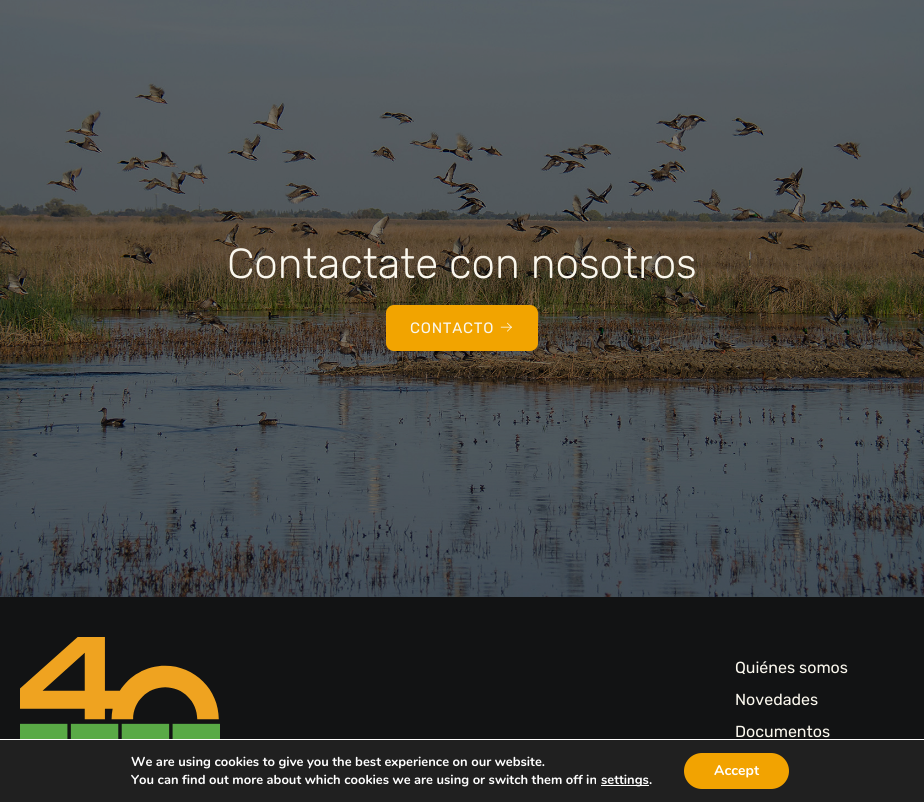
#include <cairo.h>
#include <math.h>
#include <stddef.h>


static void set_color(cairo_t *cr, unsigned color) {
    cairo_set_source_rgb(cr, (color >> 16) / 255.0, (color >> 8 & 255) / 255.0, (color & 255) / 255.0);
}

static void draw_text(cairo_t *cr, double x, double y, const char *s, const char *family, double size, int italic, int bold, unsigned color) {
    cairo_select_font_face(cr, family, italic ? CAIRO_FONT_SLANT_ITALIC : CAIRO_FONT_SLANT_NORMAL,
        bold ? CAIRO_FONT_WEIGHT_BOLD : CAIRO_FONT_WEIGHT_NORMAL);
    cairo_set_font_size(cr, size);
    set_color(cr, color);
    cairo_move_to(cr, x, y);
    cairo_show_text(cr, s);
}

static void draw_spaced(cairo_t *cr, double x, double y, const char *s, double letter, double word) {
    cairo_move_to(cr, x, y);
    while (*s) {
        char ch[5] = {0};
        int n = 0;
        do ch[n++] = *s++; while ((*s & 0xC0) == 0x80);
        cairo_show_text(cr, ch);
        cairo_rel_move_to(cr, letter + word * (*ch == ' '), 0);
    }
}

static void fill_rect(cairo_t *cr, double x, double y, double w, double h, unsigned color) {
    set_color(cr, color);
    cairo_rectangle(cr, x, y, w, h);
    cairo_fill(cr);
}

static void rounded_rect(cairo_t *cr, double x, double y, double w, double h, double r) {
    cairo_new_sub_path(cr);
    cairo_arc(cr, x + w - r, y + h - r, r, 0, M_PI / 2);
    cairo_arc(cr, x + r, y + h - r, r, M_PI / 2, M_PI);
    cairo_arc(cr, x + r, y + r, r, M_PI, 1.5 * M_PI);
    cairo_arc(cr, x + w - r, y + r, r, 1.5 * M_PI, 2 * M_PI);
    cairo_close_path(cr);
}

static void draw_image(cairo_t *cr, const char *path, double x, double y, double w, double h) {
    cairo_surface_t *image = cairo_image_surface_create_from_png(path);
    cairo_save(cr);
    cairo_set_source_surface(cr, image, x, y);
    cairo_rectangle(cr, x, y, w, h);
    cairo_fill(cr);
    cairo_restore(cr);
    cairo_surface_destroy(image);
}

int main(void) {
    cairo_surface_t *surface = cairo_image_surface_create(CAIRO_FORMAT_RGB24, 924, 802);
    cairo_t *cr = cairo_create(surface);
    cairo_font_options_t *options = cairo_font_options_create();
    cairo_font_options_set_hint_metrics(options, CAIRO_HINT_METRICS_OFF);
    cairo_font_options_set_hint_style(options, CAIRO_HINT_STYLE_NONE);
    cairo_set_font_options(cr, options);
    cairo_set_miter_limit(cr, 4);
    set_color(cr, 0xFFFFFF);
    cairo_paint(cr);
    draw_image(cr, "assets/img1.png", 0, 0, 924, 597);
    draw_text(cr, 227, 278, "Contactate con nosotros", "Rubik Light", 42, 0, 0, 0xFAF7ED);
    set_color(cr, 0xF2A400);
    rounded_rect(cr, 386, 305, 152, 46, 8);
    cairo_fill(cr);
    cairo_select_font_face(cr, "Rubik", CAIRO_FONT_SLANT_NORMAL, CAIRO_FONT_WEIGHT_NORMAL);
    cairo_set_font_size(cr, 15);
    set_color(cr, 0xFAF7ED);
    draw_spaced(cr, 410, 333, "CONTACTO", 0.75, 0);
    draw_image(cr, "assets/img2.png", 500, 322, 12, 10);
    fill_rect(cr, 0, 597, 924, 142, 0x121314);
    draw_image(cr, "assets/img3.png", 20, 637, 200, 102);
    draw_text(cr, 735, 673, "Quiénes somos", "Rubik", 16, 0, 0, 0xFAF7ED);
    draw_text(cr, 735, 705, "Novedades", "Rubik", 16, 0, 0, 0xFAF7ED);
    draw_text(cr, 735, 737, "Documentos", "Rubik", 16, 0, 0, 0xFAF7ED);
    fill_rect(cr, 0, 740, 924, 62, 0x202020);
    draw_text(cr, 131, 766, "We are using cookies to give you the best experience on our website.", "Nunito", 13, 0, 1, 0xFFFFFF);
    draw_text(cr, 131, 784, "You can find out more about which cookies we are using or switch them off in", "Nunito", 13, 0, 1, 0xFFFFFF);
    fill_rect(cr, 601, 785, 48, 1, 0xFFFFFF);
    draw_text(cr, 601, 784, "settings.", "Nunito", 13, 0, 1, 0xFFFFFF);
    set_color(cr, 0xF2A301);
    rounded_rect(cr, 684, 753, 105, 36, 18);
    cairo_fill(cr);
    draw_text(cr, 714, 775, "Accept", "Nunito", 14, 0, 1, 0xFFFFFF);
    cairo_surface_write_to_png(surface, "output.png");
    cairo_font_options_destroy(options);
    cairo_destroy(cr);
    cairo_surface_destroy(surface);
    return 0;
}
